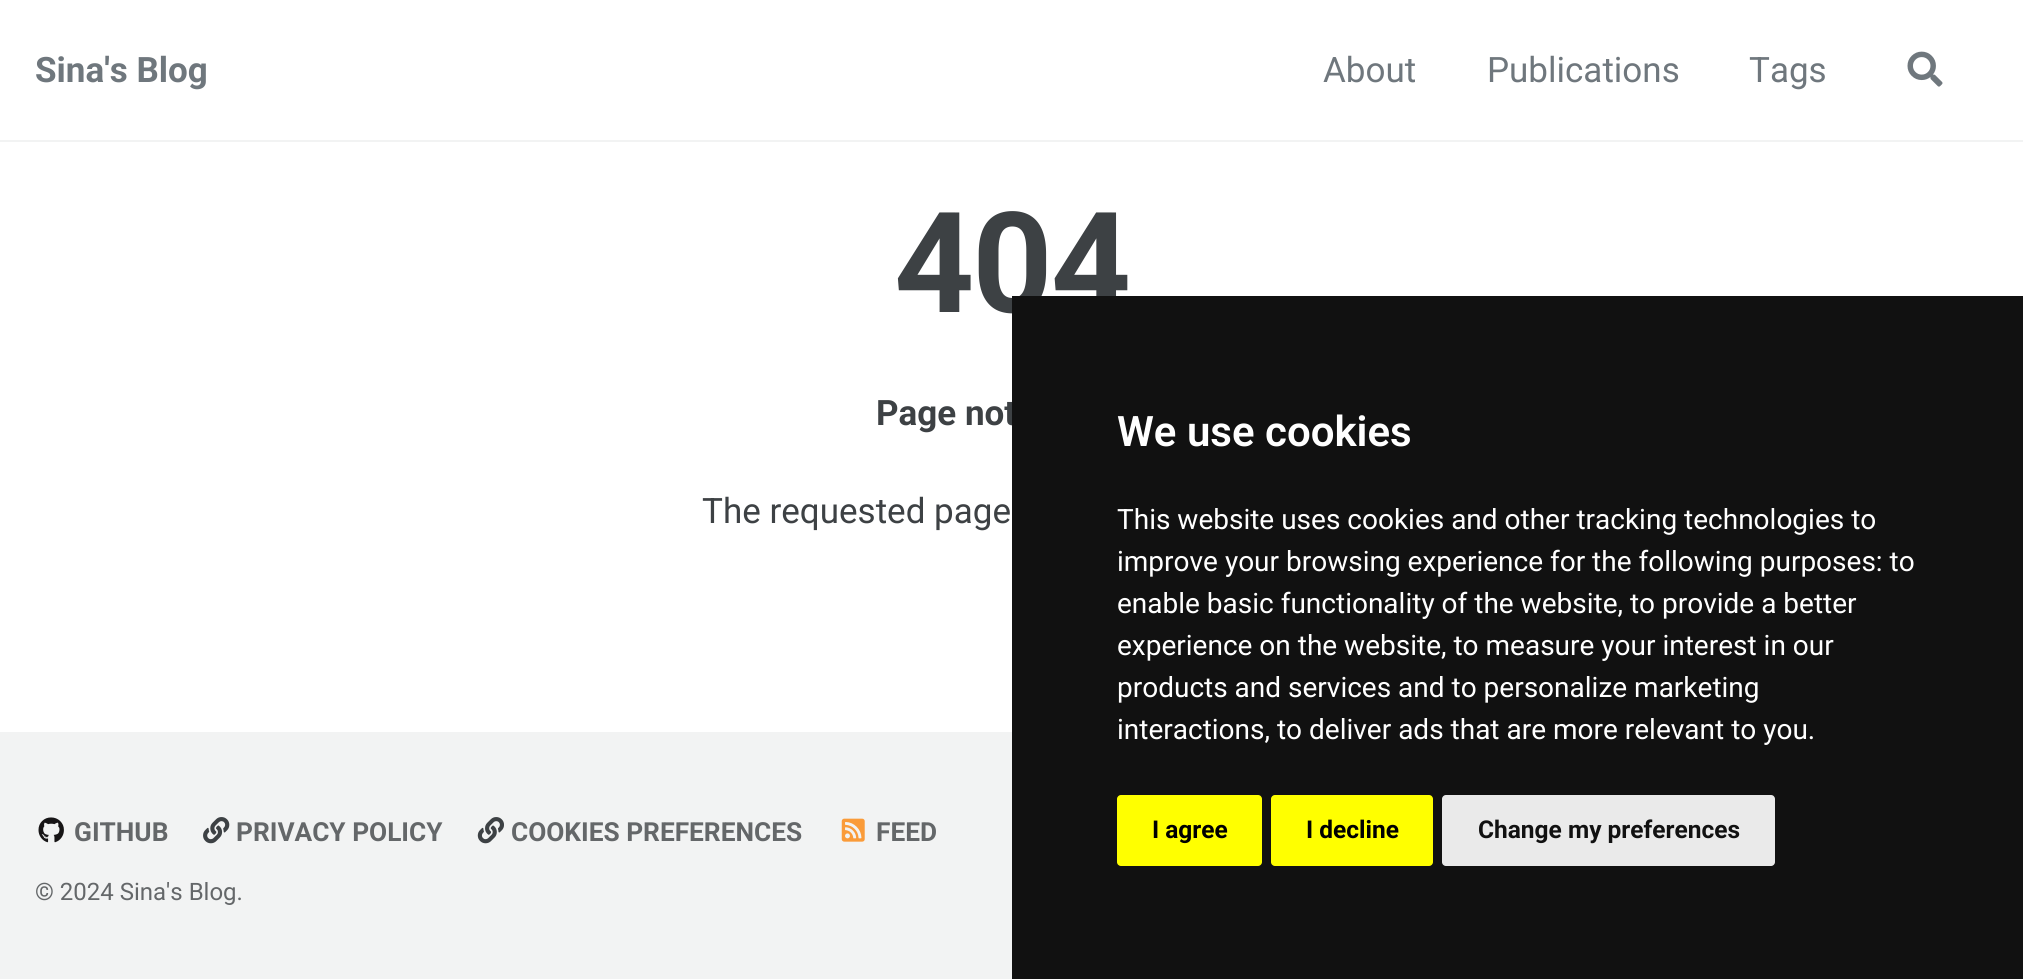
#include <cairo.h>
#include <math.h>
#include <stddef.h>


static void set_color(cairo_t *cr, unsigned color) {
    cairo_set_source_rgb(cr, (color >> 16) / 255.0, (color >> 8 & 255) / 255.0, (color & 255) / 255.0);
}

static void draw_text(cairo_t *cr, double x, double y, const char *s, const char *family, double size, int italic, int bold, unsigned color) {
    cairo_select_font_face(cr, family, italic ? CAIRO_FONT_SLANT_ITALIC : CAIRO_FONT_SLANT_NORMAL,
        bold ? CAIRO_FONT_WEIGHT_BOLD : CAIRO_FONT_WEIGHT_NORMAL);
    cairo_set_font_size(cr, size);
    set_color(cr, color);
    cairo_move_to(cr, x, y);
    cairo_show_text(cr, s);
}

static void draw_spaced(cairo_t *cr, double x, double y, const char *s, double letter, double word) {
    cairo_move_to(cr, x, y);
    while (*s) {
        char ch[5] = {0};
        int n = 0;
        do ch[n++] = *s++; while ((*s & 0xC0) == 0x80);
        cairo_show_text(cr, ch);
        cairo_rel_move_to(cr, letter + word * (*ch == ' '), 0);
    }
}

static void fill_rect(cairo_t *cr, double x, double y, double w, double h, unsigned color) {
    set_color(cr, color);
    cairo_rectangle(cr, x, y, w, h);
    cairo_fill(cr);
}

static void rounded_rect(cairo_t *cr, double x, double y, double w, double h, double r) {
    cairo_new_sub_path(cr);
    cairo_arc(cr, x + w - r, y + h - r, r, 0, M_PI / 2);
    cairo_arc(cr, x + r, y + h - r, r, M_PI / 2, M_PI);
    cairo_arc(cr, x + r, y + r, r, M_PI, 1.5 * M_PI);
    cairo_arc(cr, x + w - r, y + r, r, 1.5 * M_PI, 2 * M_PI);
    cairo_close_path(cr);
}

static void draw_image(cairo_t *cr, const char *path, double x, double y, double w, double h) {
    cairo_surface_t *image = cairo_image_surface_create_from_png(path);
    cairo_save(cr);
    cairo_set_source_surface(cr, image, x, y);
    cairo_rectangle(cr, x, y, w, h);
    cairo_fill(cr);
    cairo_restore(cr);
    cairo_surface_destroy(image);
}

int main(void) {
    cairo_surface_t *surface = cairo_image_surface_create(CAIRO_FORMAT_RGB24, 2023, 979);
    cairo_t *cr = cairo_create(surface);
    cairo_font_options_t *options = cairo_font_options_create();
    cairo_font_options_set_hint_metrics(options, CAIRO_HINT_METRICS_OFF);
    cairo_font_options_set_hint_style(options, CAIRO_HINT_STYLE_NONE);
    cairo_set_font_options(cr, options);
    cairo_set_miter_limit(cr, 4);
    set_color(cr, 0xFFFFFF);
    cairo_paint(cr);
    fill_rect(cr, 0, 140, 2023, 2, 0xF2F3F3);
    draw_text(cr, 35, 82, "Sina's Blog", "Roboto", 35, 0, 1, 0x6F777D);
    draw_text(cr, 1323, 82, "About", "Roboto", 35, 0, 0, 0x6F777D);
    draw_text(cr, 1487, 82, "Publications", "Roboto", 35, 0, 0, 0x6F777D);
    draw_text(cr, 1749, 82, "Tags", "Roboto", 35, 0, 0, 0x6F777D);
    draw_image(cr, "assets/img1.png", 1907, 51, 36, 36);
    cairo_select_font_face(cr, "Roboto", CAIRO_FONT_SLANT_NORMAL, CAIRO_FONT_WEIGHT_BOLD);
    cairo_set_font_size(cr, 140);
    set_color(cr, 0x3D4144);
    draw_spaced(cr, 894, 312, "404", -2, 0);
    draw_text(cr, 876, 425, "Page not", "Roboto", 35, 0, 1, 0x3D4144);
    draw_text(cr, 702, 523, "The requested page", "Roboto", 35, 0, 0, 0x3D4144);
    fill_rect(cr, 1012, 296, 1011, 683, 0x111111);
    draw_text(cr, 1117, 446, "We use cookies", "Roboto SemiBold", 42, 0, 0, 0xFFFFFF);
    draw_text(cr, 1117, 529, "This website uses cookies and other tracking technologies to", "Roboto", 28, 0, 0, 0xFFFFFF);
    draw_text(cr, 1117, 571, "improve your browsing experience for the following purposes: to", "Roboto", 28, 0, 0, 0xFFFFFF);
    draw_text(cr, 1117, 613, "enable basic functionality of the website, to provide a better", "Roboto", 28, 0, 0, 0xFFFFFF);
    draw_text(cr, 1117, 655, "experience on the website, to measure your interest in our", "Roboto", 28, 0, 0, 0xFFFFFF);
    draw_text(cr, 1117, 697, "products and services and to personalize marketing", "Roboto", 28, 0, 0, 0xFFFFFF);
    draw_text(cr, 1117, 739, "interactions, to deliver ads that are more relevant to you.", "Roboto", 28, 0, 0, 0xFFFFFF);
    set_color(cr, 0xFFFF00);
    rounded_rect(cr, 1117, 795, 145, 71, 4);
    cairo_fill(cr);
    draw_text(cr, 1152, 838, "I agree", "Roboto", 24.5, 0, 1, 0x000000);
    set_color(cr, 0xFFFF00);
    rounded_rect(cr, 1271, 795, 162, 71, 4);
    cairo_fill(cr);
    draw_text(cr, 1306, 838, "I decline", "Roboto", 24.5, 0, 1, 0x000000);
    set_color(cr, 0xEAEAEA);
    rounded_rect(cr, 1442, 795, 333, 71, 4);
    cairo_fill(cr);
    draw_text(cr, 1478, 838, "Change my preferences", "Roboto", 24.5, 0, 1, 0x111111);
    fill_rect(cr, 0, 732, 1012, 247, 0xF2F3F3);
    draw_image(cr, "assets/img2.png", 38, 817, 26, 26);
    draw_text(cr, 74, 841, "GITHUB", "Roboto", 26.25, 0, 1, 0x646769);
    draw_image(cr, "assets/img3.png", 203, 817, 27, 27);
    draw_text(cr, 236, 841, "PRIVACY POLICY", "Roboto", 26.25, 0, 1, 0x646769);
    draw_image(cr, "assets/img4.png", 477, 817, 27, 27);
    draw_text(cr, 511, 841, "COOKIES PREFERENCES", "Roboto", 26.25, 0, 1, 0x646769);
    draw_image(cr, "assets/img5.png", 841, 818, 24, 24);
    draw_text(cr, 876, 841, "FEED", "Roboto", 26.25, 0, 1, 0x646769);
    draw_text(cr, 35, 900, "© 2024 Sina's Blog.", "Roboto", 24, 0, 0, 0x646769);
    cairo_surface_write_to_png(surface, "output.png");
    cairo_font_options_destroy(options);
    cairo_destroy(cr);
    cairo_surface_destroy(surface);
    return 0;
}
